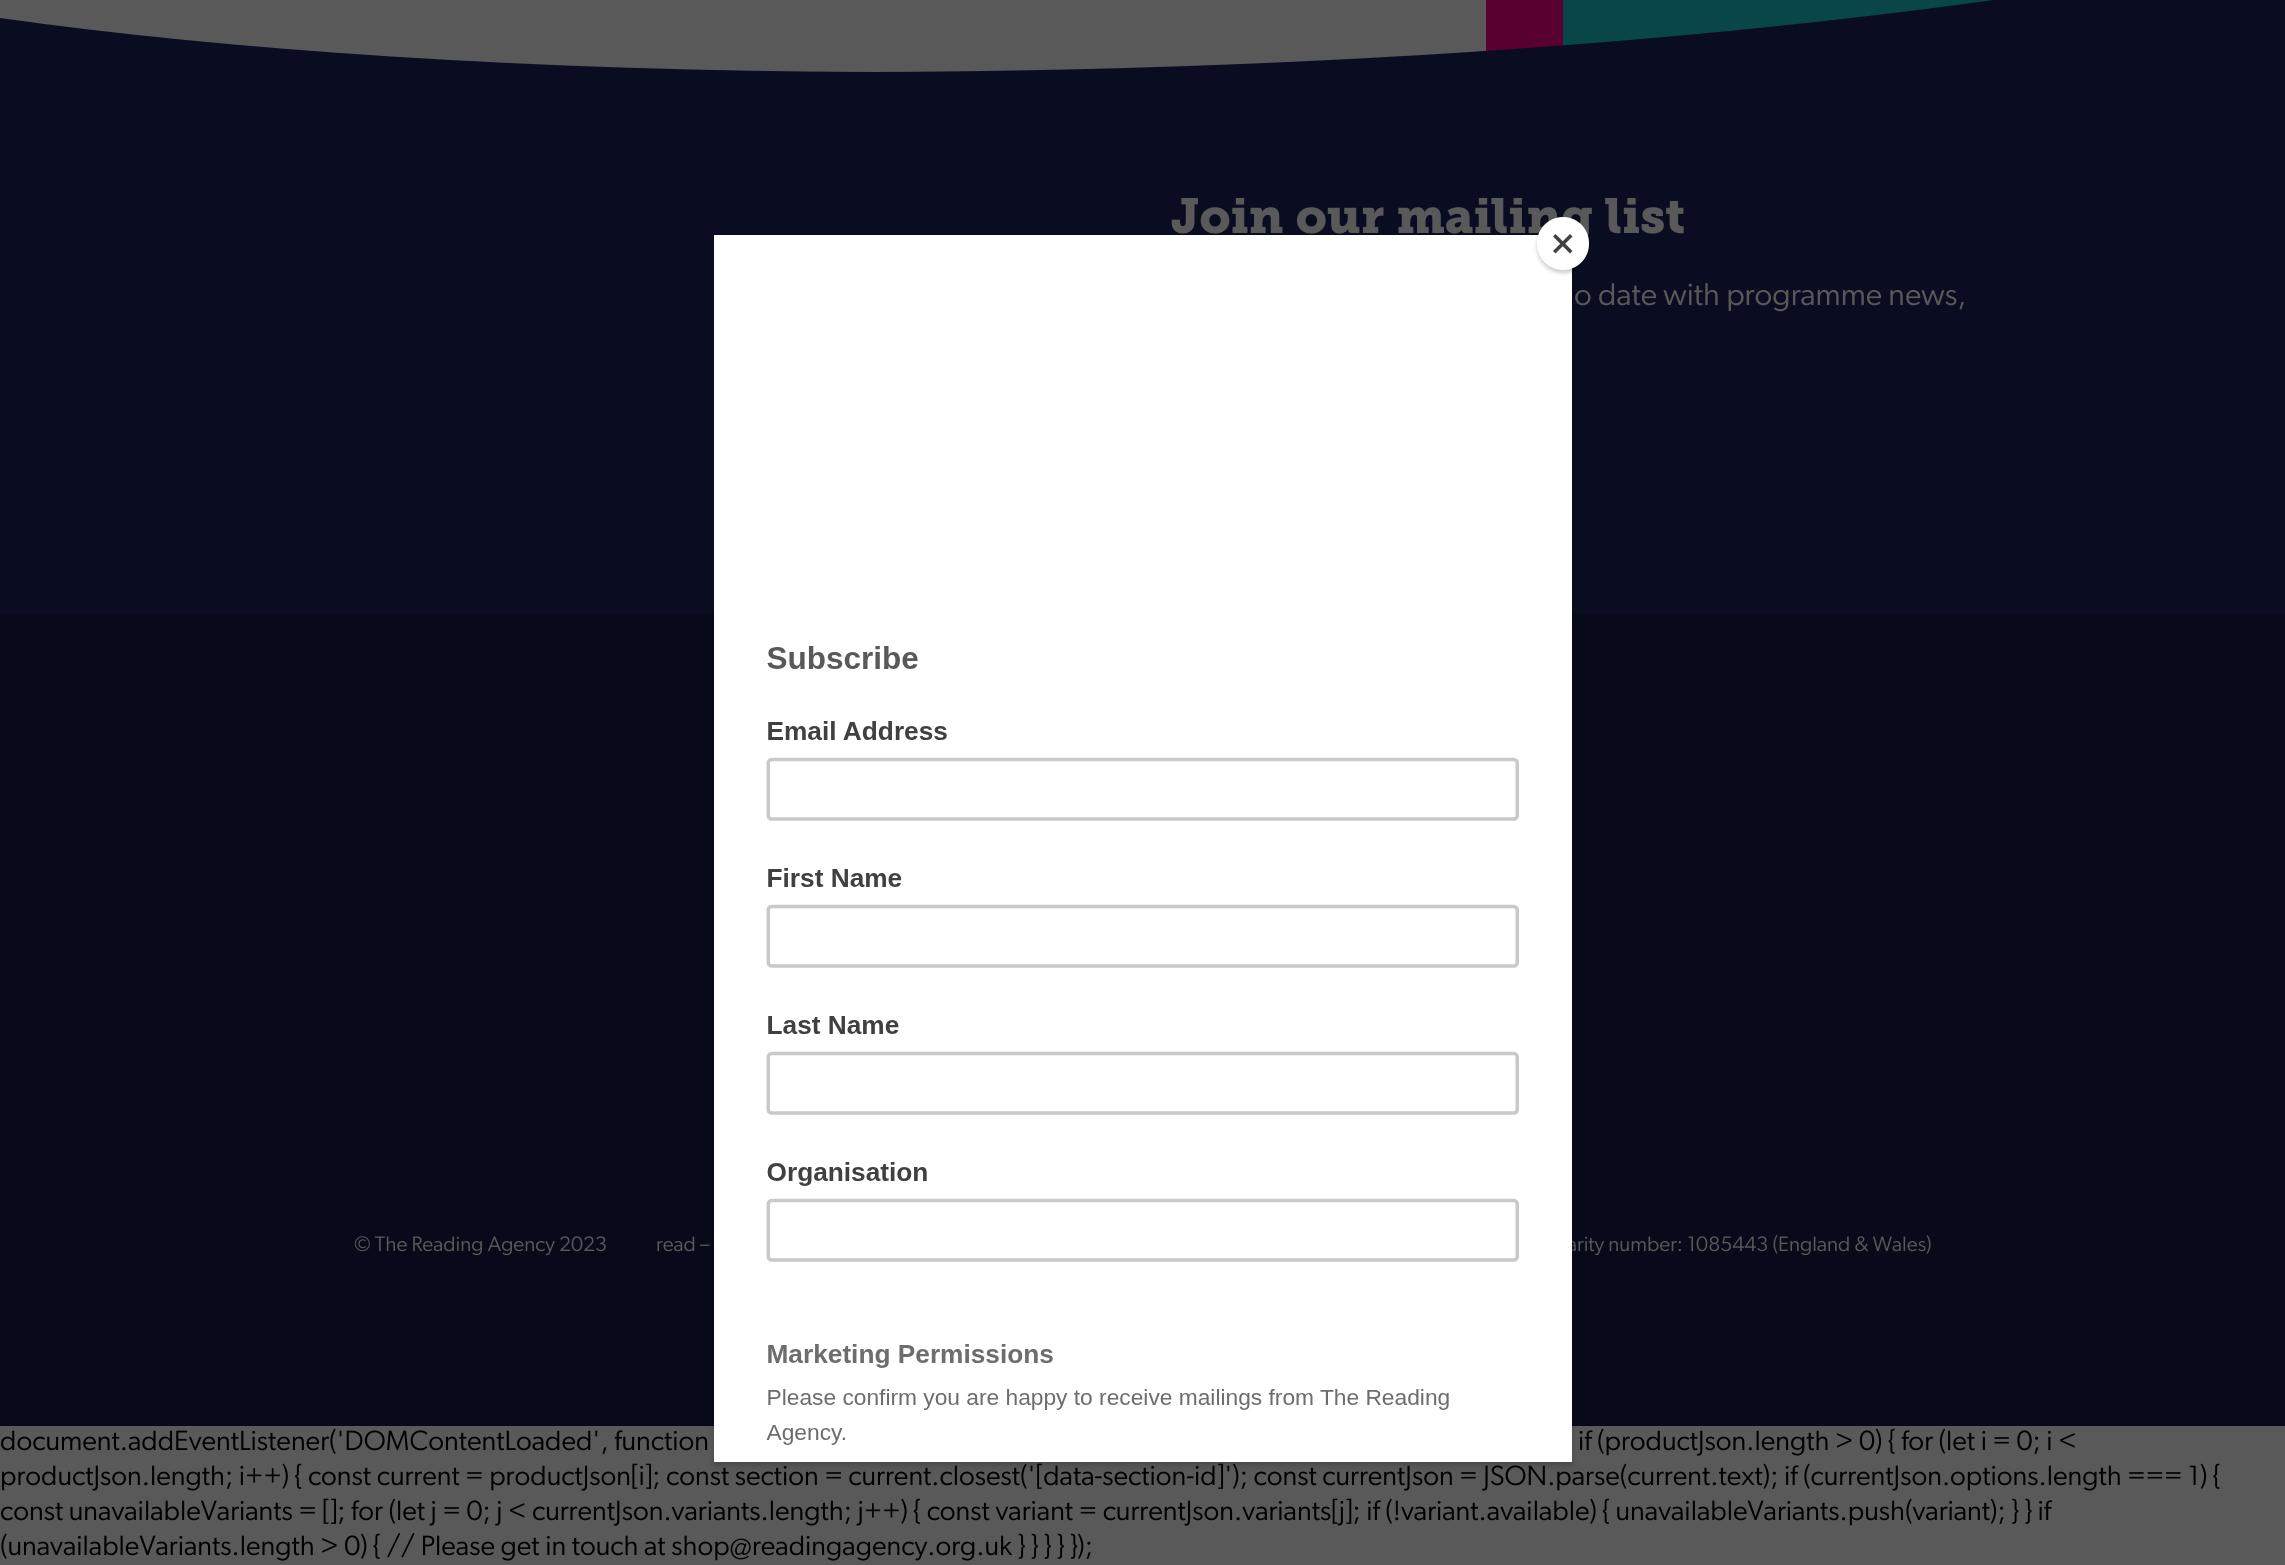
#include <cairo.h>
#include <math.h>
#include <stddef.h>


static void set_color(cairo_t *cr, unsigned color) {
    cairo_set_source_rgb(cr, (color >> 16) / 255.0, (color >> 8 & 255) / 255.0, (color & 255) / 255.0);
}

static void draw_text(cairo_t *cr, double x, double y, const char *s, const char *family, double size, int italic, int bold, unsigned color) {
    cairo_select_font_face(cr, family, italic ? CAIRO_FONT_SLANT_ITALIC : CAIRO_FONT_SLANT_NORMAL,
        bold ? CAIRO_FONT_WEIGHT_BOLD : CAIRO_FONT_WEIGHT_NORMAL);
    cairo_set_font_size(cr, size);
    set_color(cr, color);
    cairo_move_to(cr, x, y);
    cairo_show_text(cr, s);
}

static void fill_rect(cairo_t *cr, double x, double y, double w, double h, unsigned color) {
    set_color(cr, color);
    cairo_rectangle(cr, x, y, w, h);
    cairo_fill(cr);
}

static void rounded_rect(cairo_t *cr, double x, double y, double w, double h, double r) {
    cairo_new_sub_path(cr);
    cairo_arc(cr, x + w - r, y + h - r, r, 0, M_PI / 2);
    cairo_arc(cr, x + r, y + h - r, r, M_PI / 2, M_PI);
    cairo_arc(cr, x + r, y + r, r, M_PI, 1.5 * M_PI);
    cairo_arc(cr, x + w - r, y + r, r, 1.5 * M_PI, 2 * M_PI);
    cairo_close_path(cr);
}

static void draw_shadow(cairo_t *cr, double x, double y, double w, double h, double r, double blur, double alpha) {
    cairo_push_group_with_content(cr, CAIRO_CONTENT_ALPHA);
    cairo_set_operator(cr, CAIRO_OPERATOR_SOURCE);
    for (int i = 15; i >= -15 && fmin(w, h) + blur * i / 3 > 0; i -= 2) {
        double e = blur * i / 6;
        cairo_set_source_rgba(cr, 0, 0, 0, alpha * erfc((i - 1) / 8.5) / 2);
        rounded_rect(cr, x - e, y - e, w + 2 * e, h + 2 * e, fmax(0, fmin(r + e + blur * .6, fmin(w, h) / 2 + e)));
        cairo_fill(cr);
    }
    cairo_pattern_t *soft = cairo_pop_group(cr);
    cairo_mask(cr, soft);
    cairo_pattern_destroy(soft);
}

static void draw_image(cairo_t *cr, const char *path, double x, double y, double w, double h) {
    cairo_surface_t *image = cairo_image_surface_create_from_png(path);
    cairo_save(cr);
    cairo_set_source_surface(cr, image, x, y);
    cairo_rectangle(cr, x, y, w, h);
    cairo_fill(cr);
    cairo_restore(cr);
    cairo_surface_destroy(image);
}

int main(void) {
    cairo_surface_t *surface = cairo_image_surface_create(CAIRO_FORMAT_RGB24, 2285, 1565);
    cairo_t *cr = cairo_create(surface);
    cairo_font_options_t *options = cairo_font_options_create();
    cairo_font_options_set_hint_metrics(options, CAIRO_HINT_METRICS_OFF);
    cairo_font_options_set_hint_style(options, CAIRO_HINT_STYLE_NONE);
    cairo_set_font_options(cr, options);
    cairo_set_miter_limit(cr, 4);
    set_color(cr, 0x595959);
    cairo_paint(cr);
    fill_rect(cr, 1563, 0, 430, 46, 0x08464A);
    fill_rect(cr, 1486, 0, 77, 51, 0x590030);
    fill_rect(cr, 0, 75, 2285, 538, 0x0A0C21);
    cairo_save(cr);
    cairo_rectangle(cr, 0, 0, 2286, 75);
    cairo_clip(cr);
    cairo_new_path(cr);
    cairo_move_to(cr, 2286, 76);
    cairo_line_to(cr, 0, 76);
    cairo_line_to(cr, 0, 18);
    cairo_curve_to(cr, 225, 50, 532, 71, 874, 72);
    cairo_curve_to(cr, 1426, 70, 1924, 24, 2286, -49);
    cairo_line_to(cr, 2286, 72);
    cairo_line_to(cr, 902, 72);
    cairo_line_to(cr, 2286, 72);
    cairo_close_path(cr);
    cairo_fill(cr);
    cairo_restore(cr);
    draw_text(cr, 1171, 233, "Join our mailing list", "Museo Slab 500", 49, 0, 1, 0x595959);
    draw_text(cr, 1574, 305, "o date with programme news,", "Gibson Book", 31.5, 0, 0, 0x595959);
    fill_rect(cr, 0, 613, 2285, 813, 0x080A1B);
    draw_text(cr, 354, 1251, "© The Reading Agency 2023", "Gibson Book", 21, 0, 0, 0x595959);
    draw_text(cr, 656, 1251, "read –", "Gibson Book", 21, 0, 0, 0x595959);
    draw_text(cr, 1567, 1251, "arity number: 1085443 (England & Wales)", "Gibson Book", 21, 0, 0, 0x595959);
    draw_text(cr, 0, 1450, "document.addEventListener('DOMContentLoaded', function", "Gibson Book", 28, 0, 0, 0x000000);
    draw_text(cr, 1578, 1450, "if (productJson.length > 0) { for (let i = 0; i <", "Gibson Book", 28, 0, 0, 0x000000);
    draw_text(cr, 0, 1485, "productJson.length; i++) { const current = productJson[i]; const section = current.closest('[data-section-id]'); const currentJson = JSON.parse(current.text); if (currentJson.options.length === 1) {", "Gibson Book", 28, 0, 0, 0x000000);
    draw_text(cr, 0, 1520, "const unavailableVariants = []; for (let j = 0; j < currentJson.variants.length; j++) { const variant = currentJson.variants[j]; if (!variant.available) { unavailableVariants.push(variant); } } if", "Gibson Book", 28, 0, 0, 0x000000);
    draw_text(cr, 0, 1555, "(unavailableVariants.length > 0) { // Please get in touch at shop@readingagency.org.uk } } } } });", "Gibson Book", 28, 0, 0, 0x000000);
    set_color(cr, 0x000000);
    draw_shadow(cr, 714, 238, 858, 1227, 0, 3.5, 0.2);
    draw_image(cr, "assets/img1.png", 714, 235, 858, 1227);
    draw_shadow(cr, 1537, 221, 52, 52, 26, 2, 0.2);
    set_color(cr, 0xFFFFFF);
    rounded_rect(cr, 1537, 217, 52, 53, 26);
    cairo_fill(cr);
    set_color(cr, 0x414141);
    cairo_new_path(cr);
    cairo_move_to(cr, 1570, 234);
    cairo_line_to(cr, 1572.5, 236.5);
    cairo_line_to(cr, 1555.5, 253.5);
    cairo_line_to(cr, 1553, 251);
    cairo_close_path(cr);
    cairo_fill(cr);
    cairo_new_path(cr);
    cairo_move_to(cr, 1553, 236.5);
    cairo_line_to(cr, 1555.5, 234);
    cairo_line_to(cr, 1572.5, 251);
    cairo_line_to(cr, 1570, 253.5);
    cairo_close_path(cr);
    cairo_fill(cr);
    cairo_surface_write_to_png(surface, "output.png");
    cairo_font_options_destroy(options);
    cairo_destroy(cr);
    cairo_surface_destroy(surface);
    return 0;
}
